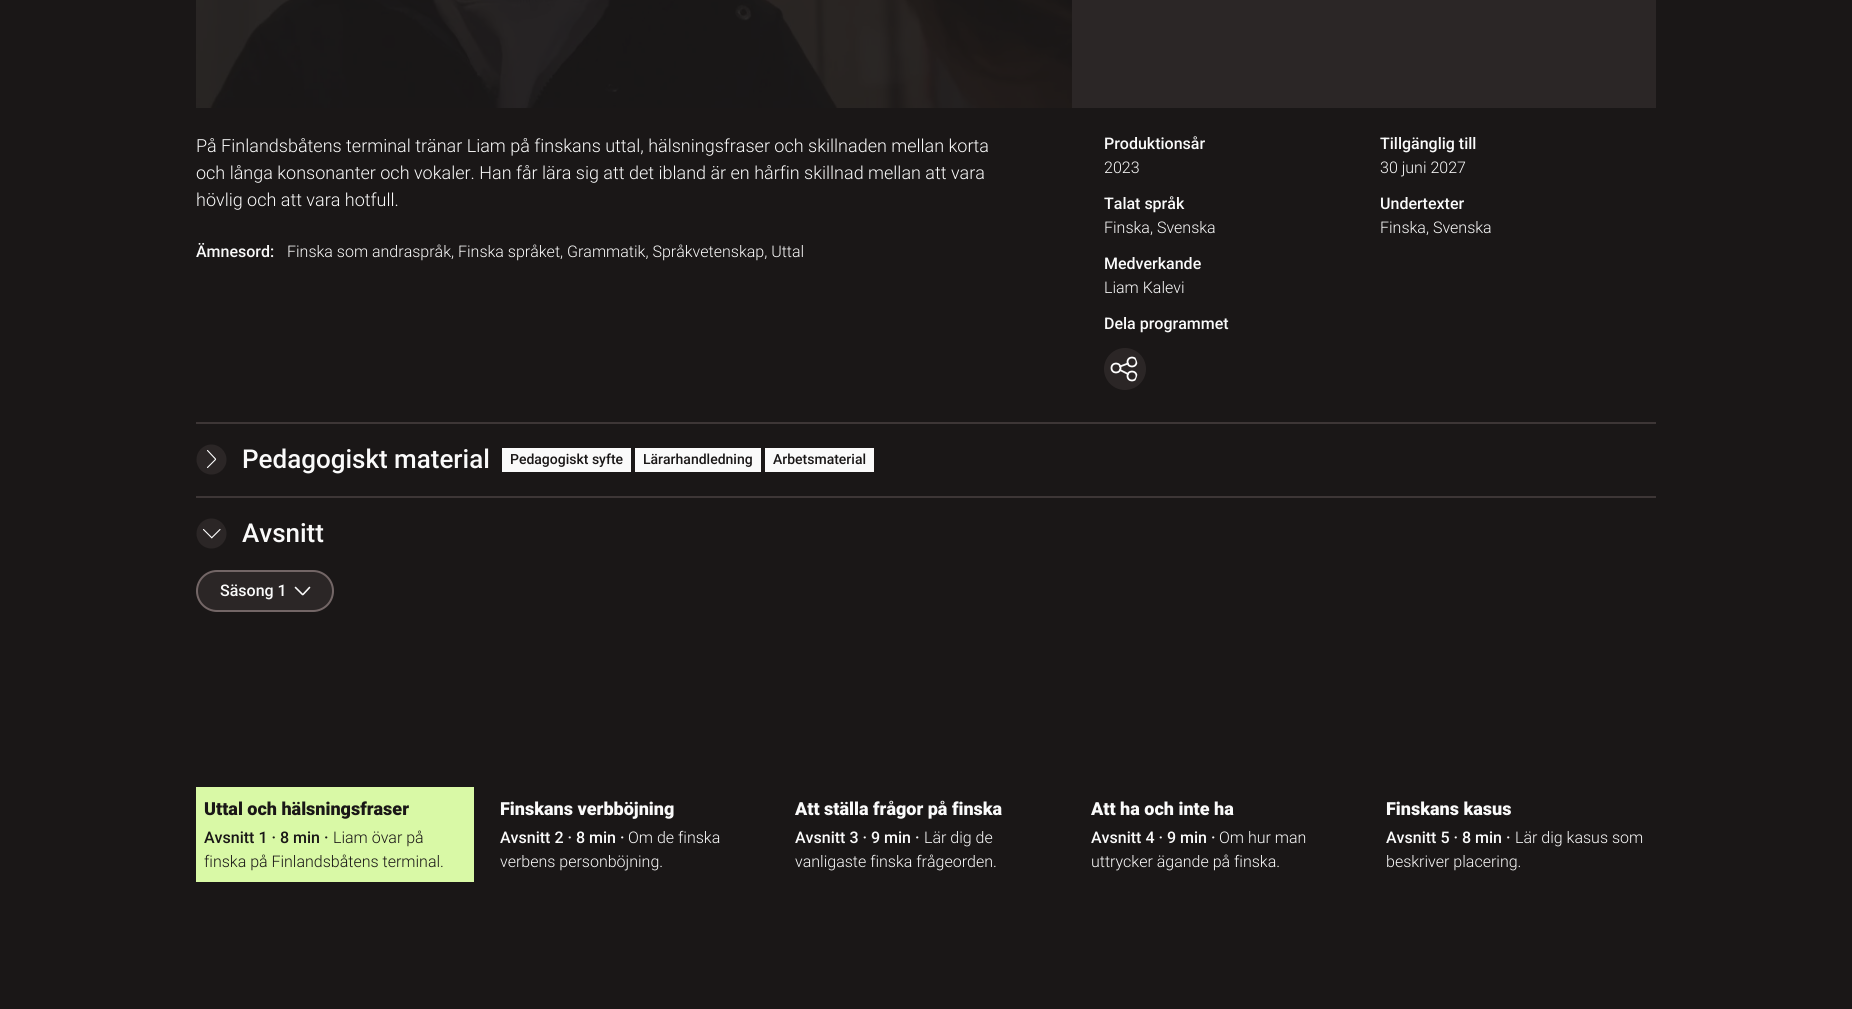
#include <cairo.h>
#include <math.h>
#include <stddef.h>


static void set_color(cairo_t *cr, unsigned color) {
    cairo_set_source_rgb(cr, (color >> 16) / 255.0, (color >> 8 & 255) / 255.0, (color & 255) / 255.0);
}

static void draw_text(cairo_t *cr, double x, double y, const char *s, const char *family, double size, int italic, int bold, unsigned color) {
    cairo_select_font_face(cr, family, italic ? CAIRO_FONT_SLANT_ITALIC : CAIRO_FONT_SLANT_NORMAL,
        bold ? CAIRO_FONT_WEIGHT_BOLD : CAIRO_FONT_WEIGHT_NORMAL);
    cairo_set_font_size(cr, size);
    set_color(cr, color);
    cairo_move_to(cr, x, y);
    cairo_show_text(cr, s);
}

static void fill_rect(cairo_t *cr, double x, double y, double w, double h, unsigned color) {
    set_color(cr, color);
    cairo_rectangle(cr, x, y, w, h);
    cairo_fill(cr);
}

static void rounded_rect(cairo_t *cr, double x, double y, double w, double h, double r) {
    cairo_new_sub_path(cr);
    cairo_arc(cr, x + w - r, y + h - r, r, 0, M_PI / 2);
    cairo_arc(cr, x + r, y + h - r, r, M_PI / 2, M_PI);
    cairo_arc(cr, x + r, y + r, r, M_PI, 1.5 * M_PI);
    cairo_arc(cr, x + w - r, y + r, r, 1.5 * M_PI, 2 * M_PI);
    cairo_close_path(cr);
}

static void draw_image(cairo_t *cr, const char *path, double x, double y, double w, double h) {
    cairo_surface_t *image = cairo_image_surface_create_from_png(path);
    cairo_save(cr);
    cairo_set_source_surface(cr, image, x, y);
    cairo_rectangle(cr, x, y, w, h);
    cairo_fill(cr);
    cairo_restore(cr);
    cairo_surface_destroy(image);
}

int main(void) {
    cairo_surface_t *surface = cairo_image_surface_create(CAIRO_FORMAT_RGB24, 1852, 1009);
    cairo_t *cr = cairo_create(surface);
    cairo_font_options_t *options = cairo_font_options_create();
    cairo_font_options_set_hint_metrics(options, CAIRO_HINT_METRICS_OFF);
    cairo_font_options_set_hint_style(options, CAIRO_HINT_STYLE_NONE);
    cairo_set_font_options(cr, options);
    cairo_set_miter_limit(cr, 4);
    set_color(cr, 0x1A1717);
    cairo_paint(cr);
    fill_rect(cr, 1072, 0, 584, 108, 0x2B2626);
    draw_image(cr, "assets/img1.png", 196, 0, 876, 108);
    draw_text(cr, 196, 152, "På Finlandsbåtens terminal tränar Liam på finskans uttal, hälsningsfraser och skillnaden mellan korta", "Roboto Light", 18, 0, 0, 0xFAFAFA);
    draw_text(cr, 196, 179, "och långa konsonanter och vokaler. Han får lära sig att det ibland är en hårfin skillnad mellan att vara", "Roboto Light", 18, 0, 0, 0xFAFAFA);
    draw_text(cr, 196, 206, "hövlig och att vara hotfull.", "Roboto Light", 18, 0, 0, 0xFAFAFA);
    draw_text(cr, 196, 257, "Ämnesord:", "Roboto Medium", 16, 0, 0, 0xFAFAFA);
    draw_text(cr, 287, 257, "Finska som andraspråk, Finska språket, Grammatik, Språkvetenskap, Uttal", "Roboto Light", 16, 0, 0, 0xFAFAFA);
    draw_text(cr, 1104, 149, "Produktionsår", "Roboto Medium", 16, 0, 0, 0xFAFAFA);
    draw_text(cr, 1104, 173, "2023", "Roboto Light", 16, 0, 0, 0xFAFAFA);
    draw_text(cr, 1380, 149, "Tillgänglig till", "Roboto Medium", 16, 0, 0, 0xFAFAFA);
    draw_text(cr, 1380, 173, "30 juni 2027", "Roboto Light", 16, 0, 0, 0xFAFAFA);
    draw_text(cr, 1104, 209, "Talat språk", "Roboto Medium", 16, 0, 0, 0xFAFAFA);
    draw_text(cr, 1104, 233, "Finska, Svenska", "Roboto Light", 16, 0, 0, 0xFAFAFA);
    draw_text(cr, 1380, 209, "Undertexter", "Roboto Medium", 16, 0, 0, 0xFAFAFA);
    draw_text(cr, 1380, 233, "Finska, Svenska", "Roboto Light", 16, 0, 0, 0xFAFAFA);
    draw_text(cr, 1104, 269, "Medverkande", "Roboto Medium", 16, 0, 0, 0xFAFAFA);
    draw_text(cr, 1104, 293, "Liam Kalevi", "Roboto Light", 16, 0, 0, 0xFAFAFA);
    draw_text(cr, 1104, 329, "Dela programmet", "Roboto Medium", 16, 0, 0, 0xFAFAFA);
    set_color(cr, 0x2B2626);
    cairo_new_path(cr);
    cairo_arc(cr, 1125, 369, 21, 0, 2 * M_PI);
    cairo_fill(cr);
    cairo_arc(cr, 1116, 368, 4.5, 0, 2 * M_PI);
    set_color(cr, 0xFFFFFF);
    cairo_set_line_width(cr, 1.8);
    cairo_stroke(cr);
    cairo_save(cr);
    cairo_new_path(cr);
    cairo_move_to(cr, 1124, 349);
    cairo_curve_to(cr, 1131.5, 349, 1138, 358, 1138, 369);
    cairo_curve_to(cr, 1138, 380, 1131.5, 389, 1124, 389);
    cairo_curve_to(cr, 1116.5, 389, 1110, 380, 1110, 369);
    cairo_curve_to(cr, 1110, 358, 1116.5, 349, 1124, 349);
    cairo_close_path(cr);
    cairo_clip(cr);
    cairo_arc(cr, 1132, 362, 4.5, 0, 2 * M_PI);
    cairo_stroke(cr);
    cairo_arc(cr, 1132, 376, 4.5, 0, 2 * M_PI);
    cairo_stroke(cr);
    cairo_restore(cr);
    cairo_new_path(cr);
    cairo_move_to(cr, 1120, 366.5);
    cairo_line_to(cr, 1128, 363.5);
    cairo_move_to(cr, 1120, 370);
    cairo_line_to(cr, 1128, 374);
    set_color(cr, 0xFAFAFA);
    cairo_set_line_cap(cr, CAIRO_LINE_CAP_ROUND);
    cairo_set_line_join(cr, CAIRO_LINE_JOIN_ROUND);
    cairo_stroke(cr);
    fill_rect(cr, 196, 422, 1460, 2, 0x3D3636);
    set_color(cr, 0x2B2626);
    cairo_new_path(cr);
    cairo_move_to(cr, 226.5, 459.5);
    cairo_curve_to(cr, 226.5, 468, 219.5, 474.5, 211.5, 474.5);
    cairo_curve_to(cr, 203, 474.5, 196.5, 468, 196.5, 459.5);
    cairo_curve_to(cr, 196.5, 451.5, 203, 444.5, 211.5, 444.5);
    cairo_curve_to(cr, 219.5, 444.5, 226.5, 451.5, 226.5, 459.5);
    cairo_close_path(cr);
    cairo_fill(cr);
    cairo_new_path(cr);
    cairo_move_to(cr, 207.5, 467.5);
    cairo_line_to(cr, 215.5, 459.5);
    cairo_curve_to(cr, 215.5, 459.5, 215.5, 459, 215.5, 459);
    cairo_line_to(cr, 207.5, 450.5);
    set_color(cr, 0xFFFFFF);
    cairo_set_line_width(cr, 1.1);
    cairo_stroke(cr);
    draw_text(cr, 242, 468, "Pedagogiskt material", "Roboto Medium", 26, 0, 0, 0xFAFAFA);
    fill_rect(cr, 502, 448, 129, 24, 0xFAFAFA);
    draw_text(cr, 510, 464, "Pedagogiskt syfte", "Roboto Medium", 14, 0, 0, 0x1A1717);
    fill_rect(cr, 635, 448, 126, 24, 0xFAFAFA);
    draw_text(cr, 643, 464, "Lärarhandledning", "Roboto Medium", 14, 0, 0, 0x1A1717);
    fill_rect(cr, 765, 448, 109, 24, 0xFAFAFA);
    draw_text(cr, 773, 464, "Arbetsmaterial", "Roboto Medium", 14, 0, 0, 0x1A1717);
    fill_rect(cr, 196, 496, 1460, 2, 0x3D3636);
    set_color(cr, 0x2B2626);
    cairo_new_path(cr);
    cairo_move_to(cr, 211.5, 548.5);
    cairo_curve_to(cr, 203, 548.5, 196.5, 542, 196.5, 533.5);
    cairo_curve_to(cr, 196.5, 525.5, 203, 518.5, 211.5, 518.5);
    cairo_curve_to(cr, 219.5, 518.5, 226.5, 525.5, 226.5, 533.5);
    cairo_curve_to(cr, 226.5, 542, 219.5, 548.5, 211.5, 548.5);
    cairo_close_path(cr);
    cairo_fill(cr);
    cairo_new_path(cr);
    cairo_move_to(cr, 203.5, 529.5);
    cairo_line_to(cr, 211.5, 537.5);
    cairo_curve_to(cr, 211.5, 538, 212, 538, 212, 537.5);
    cairo_line_to(cr, 220, 529.5);
    set_color(cr, 0xFFFFFF);
    cairo_stroke(cr);
    draw_text(cr, 242, 542, "Avsnitt", "Roboto Medium", 26, 0, 0, 0xFAFAFA);
    set_color(cr, 0x2B2626);
    rounded_rect(cr, 197, 571, 136, 40, 20);
    cairo_fill_preserve(cr);
    set_color(cr, 0x736666);
    cairo_set_line_width(cr, 2);
    cairo_set_line_cap(cr, CAIRO_LINE_CAP_BUTT);
    cairo_set_line_join(cr, CAIRO_LINE_JOIN_MITER);
    cairo_stroke(cr);
    draw_text(cr, 220, 596, "Säsong 1", "Roboto Medium", 16, 0, 0, 0xFAFAFA);
    cairo_new_path(cr);
    cairo_move_to(cr, 295.5, 587.5);
    cairo_line_to(cr, 302.5, 594.5);
    cairo_line_to(cr, 303, 594.5);
    cairo_line_to(cr, 309.5, 587.5);
    cairo_set_line_width(cr, 1.6);
    cairo_set_line_cap(cr, CAIRO_LINE_CAP_ROUND);
    cairo_set_line_join(cr, CAIRO_LINE_JOIN_ROUND);
    cairo_stroke(cr);
    fill_rect(cr, 196, 787, 278, 95, 0xD9F9A6);
    draw_text(cr, 204, 815, "Uttal och hälsningsfraser", "Roboto Black", 18, 0, 0, 0x1A1717);
    draw_text(cr, 204, 843, "Avsnitt 1 · 8 min ·", "Roboto Medium", 16, 0, 0, 0x1A1717);
    draw_text(cr, 333, 843, "Liam övar på", "Roboto Light", 16, 0, 0, 0x1A1717);
    draw_text(cr, 204, 867, "finska på Finlandsbåtens terminal.", "Roboto Light", 16, 0, 0, 0x1A1717);
    draw_text(cr, 500, 815, "Finskans verbböjning", "Roboto Black", 18, 0, 0, 0xFAFAFA);
    draw_text(cr, 500, 843, "Avsnitt 2 · 8 min ·", "Roboto Medium", 16, 0, 0, 0xFAFAFA);
    draw_text(cr, 628, 843, "Om de finska", "Roboto Light", 16, 0, 0, 0xFAFAFA);
    draw_text(cr, 500, 867, "verbens personböjning.", "Roboto Light", 16, 0, 0, 0xFAFAFA);
    draw_text(cr, 795, 815, "Att ställa frågor på finska", "Roboto Black", 18, 0, 0, 0xFAFAFA);
    draw_text(cr, 795, 843, "Avsnitt 3 · 9 min ·", "Roboto Medium", 16, 0, 0, 0xFAFAFA);
    draw_text(cr, 924, 843, "Lär dig de", "Roboto Light", 16, 0, 0, 0xFAFAFA);
    draw_text(cr, 795, 867, "vanligaste finska frågeorden.", "Roboto Light", 16, 0, 0, 0xFAFAFA);
    draw_text(cr, 1091, 815, "Att ha och inte ha", "Roboto Black", 18, 0, 0, 0xFAFAFA);
    draw_text(cr, 1091, 843, "Avsnitt 4 · 9 min ·", "Roboto Medium", 16, 0, 0, 0xFAFAFA);
    draw_text(cr, 1219, 843, "Om hur man", "Roboto Light", 16, 0, 0, 0xFAFAFA);
    draw_text(cr, 1091, 867, "uttrycker ägande på finska.", "Roboto Light", 16, 0, 0, 0xFAFAFA);
    draw_text(cr, 1386, 815, "Finskans kasus", "Roboto Black", 18, 0, 0, 0xFAFAFA);
    draw_text(cr, 1386, 843, "Avsnitt 5 · 8 min ·", "Roboto Medium", 16, 0, 0, 0xFAFAFA);
    draw_text(cr, 1515, 843, "Lär dig kasus som", "Roboto Light", 16, 0, 0, 0xFAFAFA);
    draw_text(cr, 1386, 867, "beskriver placering.", "Roboto Light", 16, 0, 0, 0xFAFAFA);
    cairo_surface_write_to_png(surface, "output.png");
    cairo_font_options_destroy(options);
    cairo_destroy(cr);
    cairo_surface_destroy(surface);
    return 0;
}
